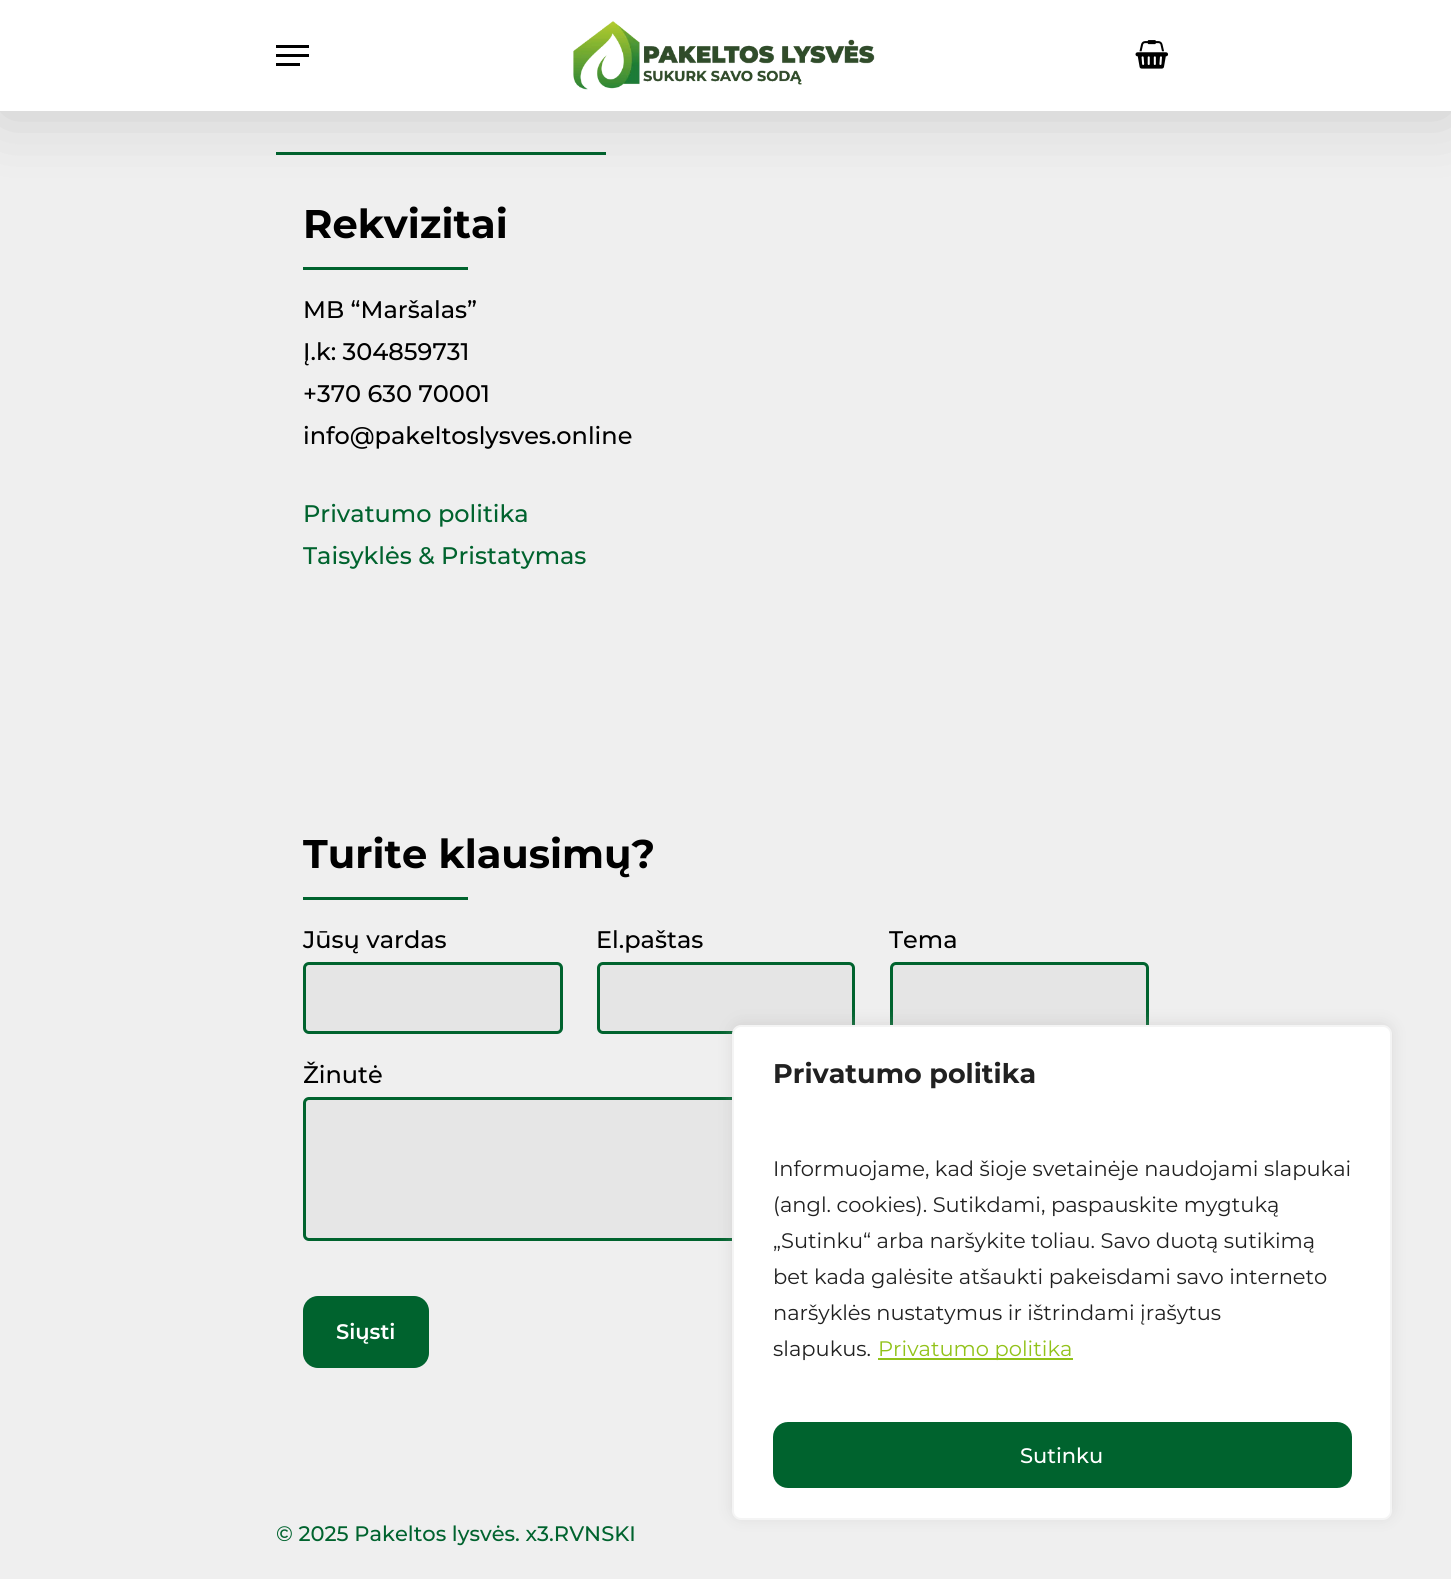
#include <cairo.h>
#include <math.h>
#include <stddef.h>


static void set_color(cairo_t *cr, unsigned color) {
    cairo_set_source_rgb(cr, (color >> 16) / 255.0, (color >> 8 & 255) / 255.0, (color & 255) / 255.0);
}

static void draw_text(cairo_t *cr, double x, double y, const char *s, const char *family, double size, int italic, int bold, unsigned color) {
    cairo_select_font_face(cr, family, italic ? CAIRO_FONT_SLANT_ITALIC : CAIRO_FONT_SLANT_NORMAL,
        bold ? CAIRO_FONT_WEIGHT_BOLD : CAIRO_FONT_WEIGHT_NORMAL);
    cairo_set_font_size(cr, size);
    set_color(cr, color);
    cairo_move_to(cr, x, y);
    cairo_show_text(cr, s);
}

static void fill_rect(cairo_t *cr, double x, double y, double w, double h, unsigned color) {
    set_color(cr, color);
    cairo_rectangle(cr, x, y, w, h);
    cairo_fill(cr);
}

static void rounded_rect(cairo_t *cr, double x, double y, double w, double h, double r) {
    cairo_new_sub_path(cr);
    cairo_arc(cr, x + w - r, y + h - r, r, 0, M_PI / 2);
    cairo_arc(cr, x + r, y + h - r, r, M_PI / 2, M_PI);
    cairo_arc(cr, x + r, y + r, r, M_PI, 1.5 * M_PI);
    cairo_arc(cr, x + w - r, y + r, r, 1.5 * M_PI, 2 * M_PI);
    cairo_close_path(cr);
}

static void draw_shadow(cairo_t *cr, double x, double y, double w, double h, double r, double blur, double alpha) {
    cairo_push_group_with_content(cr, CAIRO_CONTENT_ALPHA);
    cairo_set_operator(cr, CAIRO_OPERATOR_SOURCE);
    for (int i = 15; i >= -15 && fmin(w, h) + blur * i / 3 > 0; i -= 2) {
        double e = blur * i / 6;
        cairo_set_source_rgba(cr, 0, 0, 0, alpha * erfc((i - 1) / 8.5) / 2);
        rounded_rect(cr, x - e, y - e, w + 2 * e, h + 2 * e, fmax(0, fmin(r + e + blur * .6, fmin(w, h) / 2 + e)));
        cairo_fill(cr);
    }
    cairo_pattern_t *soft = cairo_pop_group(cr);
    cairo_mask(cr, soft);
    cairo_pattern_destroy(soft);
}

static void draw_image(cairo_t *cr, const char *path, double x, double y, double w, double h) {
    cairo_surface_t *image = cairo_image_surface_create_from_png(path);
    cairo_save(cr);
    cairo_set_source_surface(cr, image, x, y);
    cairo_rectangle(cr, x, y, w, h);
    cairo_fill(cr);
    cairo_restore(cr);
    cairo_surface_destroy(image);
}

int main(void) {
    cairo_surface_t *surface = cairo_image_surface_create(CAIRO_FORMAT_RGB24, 1451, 1579);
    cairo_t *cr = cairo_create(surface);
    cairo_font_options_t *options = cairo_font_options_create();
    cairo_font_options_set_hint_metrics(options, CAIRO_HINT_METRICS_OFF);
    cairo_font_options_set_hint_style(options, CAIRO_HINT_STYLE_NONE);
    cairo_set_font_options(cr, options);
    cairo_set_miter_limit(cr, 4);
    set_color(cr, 0xEFEFEF);
    cairo_paint(cr);
    fill_rect(cr, 276, 152, 330, 3, 0x00632E);
    set_color(cr, 0x000000);
    draw_shadow(cr, 0, -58, 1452, 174, 0, 34, 0.15);
    fill_rect(cr, 0, 0, 1451, 111, 0xFFFFFF);
    draw_image(cr, "assets/img1.png", 573, 21, 302, 69);
    fill_rect(cr, 276, 45, 33, 3, 0x000000);
    fill_rect(cr, 276, 63, 24, 3, 0x000000);
    fill_rect(cr, 276, 54, 33, 3, 0x000000);
    draw_image(cr, "assets/img2.png", 1135, 40, 34, 29);
    draw_text(cr, 303, 238, "Rekvizitai", "Montserrat", 40, 0, 1, 0x000000);
    fill_rect(cr, 303, 267, 165, 3, 0x00632E);
    draw_text(cr, 303, 318, "MB “Maršalas”", "Montserrat Medium", 24, 0, 0, 0x000000);
    draw_text(cr, 303, 360, "Į.k: 304859731", "Montserrat Medium", 24, 0, 0, 0x000000);
    draw_text(cr, 303, 402, "+370 630 70001", "Montserrat Medium", 24, 0, 0, 0x000000);
    draw_text(cr, 303, 444, "info@pakeltoslysves.online", "Montserrat Medium", 24, 0, 0, 0x000000);
    draw_text(cr, 303, 522, "Privatumo politika", "Montserrat Medium", 24, 0, 0, 0x00632E);
    draw_text(cr, 303, 564, "Taisyklės & Pristatymas", "Montserrat Medium", 24, 0, 0, 0x00632E);
    draw_text(cr, 303, 868, "Turite klausimų?", "Montserrat", 40, 0, 1, 0x000000);
    fill_rect(cr, 303, 897, 165, 3, 0x00632E);
    draw_text(cr, 303, 948, "Jūsų vardas", "Montserrat Medium", 24, 0, 0, 0x000000);
    set_color(cr, 0xE5E5E5);
    rounded_rect(cr, 304.5, 963.5, 257, 69, 4.5);
    cairo_fill_preserve(cr);
    set_color(cr, 0x00632E);
    cairo_set_line_width(cr, 3);
    cairo_stroke(cr);
    draw_text(cr, 596, 948, "El.paštas", "Montserrat Medium", 24, 0, 0, 0x000000);
    set_color(cr, 0xE5E5E5);
    rounded_rect(cr, 598.5, 963.5, 255, 69, 4.5);
    cairo_fill_preserve(cr);
    set_color(cr, 0x00632E);
    cairo_stroke(cr);
    draw_text(cr, 889, 948, "Tema", "Montserrat Medium", 24, 0, 0, 0x000000);
    set_color(cr, 0xE5E5E5);
    rounded_rect(cr, 891.5, 963.5, 256, 69, 4.5);
    cairo_fill_preserve(cr);
    set_color(cr, 0x00632E);
    cairo_stroke(cr);
    draw_text(cr, 303, 1083, "Žinutė", "Montserrat Medium", 24, 0, 0, 0x000000);
    set_color(cr, 0xE6E6E6);
    rounded_rect(cr, 304.5, 1098.5, 843, 141, 4.5);
    cairo_fill_preserve(cr);
    set_color(cr, 0x00632E);
    cairo_stroke(cr);
    rounded_rect(cr, 303, 1296, 126, 72, 15);
    cairo_fill(cr);
    draw_text(cr, 336, 1339, "Siųsti", "Montserrat SemiBold", 21, 0, 0, 0xFFFFFF);
    draw_text(cr, 276, 1541, "© 2025 Pakeltos lysvės. x3.RVNSKI", "Montserrat Medium", 21, 0, 0, 0x00632E);
    set_color(cr, 0xACABAB);
    draw_shadow(cr, 732, 1023, 660, 495, 9, 7.5, 0.3);
    set_color(cr, 0xFFFFFF);
    rounded_rect(cr, 733, 1026, 658, 493, 8);
    cairo_fill_preserve(cr);
    set_color(cr, 0xF4F4F4);
    cairo_set_line_width(cr, 2);
    cairo_stroke(cr);
    draw_text(cr, 773, 1083, "Privatumo politika", "Montserrat", 27, 0, 1, 0x212121);
    draw_text(cr, 773, 1176, "Informuojame, kad šioje svetainėje naudojami slapukai", "Montserrat", 21, 0, 0, 0x212121);
    draw_text(cr, 773, 1212, "(angl. cookies). Sutikdami, paspauskite mygtuką", "Montserrat", 21, 0, 0, 0x212121);
    draw_text(cr, 773, 1248, "„Sutinku“ arba naršykite toliau. Savo duotą sutikimą", "Montserrat", 21, 0, 0, 0x212121);
    draw_text(cr, 773, 1284, "bet kada galėsite atšaukti pakeisdami savo interneto", "Montserrat", 21, 0, 0, 0x212121);
    draw_text(cr, 773, 1320, "naršyklės nustatymus ir ištrindami įrašytus", "Montserrat", 21, 0, 0, 0x212121);
    draw_text(cr, 773, 1356, "slapukus.", "Montserrat", 21, 0, 0, 0x212121);
    fill_rect(cr, 878, 1358, 195, 2, 0x91C219);
    draw_text(cr, 878, 1356, "Privatumo politika", "Montserrat", 21, 0, 0, 0x91C219);
    set_color(cr, 0x00632E);
    rounded_rect(cr, 774.5, 1423.5, 576, 63, 13.5);
    cairo_fill_preserve(cr);
    cairo_set_line_width(cr, 3);
    cairo_stroke(cr);
    draw_text(cr, 1020, 1463, "Sutinku", "Montserrat Medium", 21, 0, 0, 0xFFFFFF);
    cairo_surface_write_to_png(surface, "output.png");
    cairo_font_options_destroy(options);
    cairo_destroy(cr);
    cairo_surface_destroy(surface);
    return 0;
}
